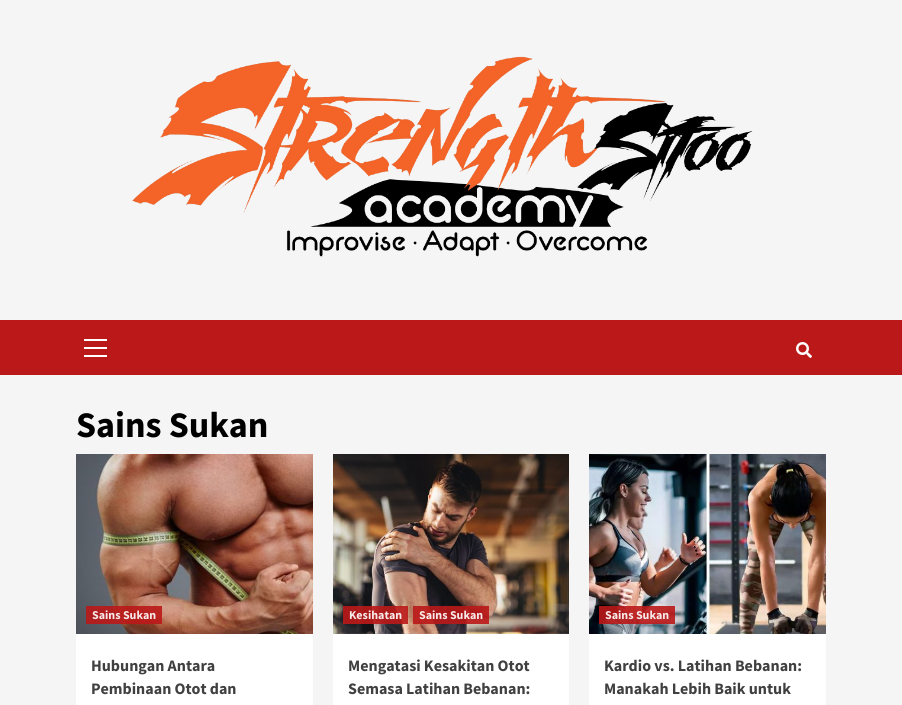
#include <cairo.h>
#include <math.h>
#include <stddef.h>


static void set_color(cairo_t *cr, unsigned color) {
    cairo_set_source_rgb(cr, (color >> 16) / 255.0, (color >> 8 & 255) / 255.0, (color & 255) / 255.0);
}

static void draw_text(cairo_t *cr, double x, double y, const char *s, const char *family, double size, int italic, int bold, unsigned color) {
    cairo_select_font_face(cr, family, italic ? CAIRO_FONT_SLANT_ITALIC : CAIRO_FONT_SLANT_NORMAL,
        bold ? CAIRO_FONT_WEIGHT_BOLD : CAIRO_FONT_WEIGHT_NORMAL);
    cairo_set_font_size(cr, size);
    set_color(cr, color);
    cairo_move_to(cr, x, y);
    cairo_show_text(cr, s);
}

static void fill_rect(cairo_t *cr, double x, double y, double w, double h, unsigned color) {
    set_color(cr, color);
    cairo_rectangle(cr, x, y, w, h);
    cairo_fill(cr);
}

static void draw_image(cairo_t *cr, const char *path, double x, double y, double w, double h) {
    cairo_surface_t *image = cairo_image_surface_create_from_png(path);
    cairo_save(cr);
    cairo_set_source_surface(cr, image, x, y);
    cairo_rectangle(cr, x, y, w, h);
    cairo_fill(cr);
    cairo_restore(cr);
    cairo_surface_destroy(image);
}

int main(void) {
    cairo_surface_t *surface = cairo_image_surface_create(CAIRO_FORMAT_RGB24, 902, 705);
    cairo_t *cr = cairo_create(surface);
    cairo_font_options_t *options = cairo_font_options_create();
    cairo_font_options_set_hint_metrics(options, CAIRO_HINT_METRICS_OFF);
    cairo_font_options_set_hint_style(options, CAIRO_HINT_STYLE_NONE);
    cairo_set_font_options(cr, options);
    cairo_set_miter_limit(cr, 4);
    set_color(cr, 0xF5F5F5);
    cairo_paint(cr);
    draw_image(cr, "assets/img1.png", 132, 56, 621, 201);
    fill_rect(cr, 0, 320, 902, 55, 0xBB1919);
    fill_rect(cr, 84, 347, 23, 2, 0xFFFFFF);
    fill_rect(cr, 84, 339, 23, 2, 0xFFFFFF);
    fill_rect(cr, 84, 355, 23, 2, 0xFFFFFF);
    draw_image(cr, "assets/img2.png", 796, 342, 16, 16);
    draw_text(cr, 76, 437, "Sains Sukan", "Source Sans Pro", 36, 0, 1, 0x000000);
    fill_rect(cr, 76, 634, 237, 71, 0xFFFFFF);
    draw_image(cr, "assets/img3.png", 76, 454, 237, 180);
    cairo_set_source_rgba(cr, 0.733, 0.098, 0.098, 0.9);
    cairo_rectangle(cr, 86, 606, 76, 18);
    cairo_fill(cr);
    draw_text(cr, 92, 619, "Sains Sukan", "Source Sans Pro", 12, 0, 1, 0xF8E9E9);
    draw_text(cr, 91, 671, "Hubungan Antara", "Source Sans Pro", 16, 0, 1, 0x404040);
    draw_text(cr, 91, 694, "Pembinaan Otot dan", "Source Sans Pro", 16, 0, 1, 0x404040);
    fill_rect(cr, 333, 634, 236, 71, 0xFFFFFF);
    draw_image(cr, "assets/img4.png", 333, 454, 236, 180);
    cairo_set_source_rgba(cr, 0.733, 0.098, 0.098, 0.9);
    cairo_rectangle(cr, 343, 606, 65, 18);
    cairo_fill(cr);
    draw_text(cr, 349, 619, "Kesihatan", "Source Sans Pro", 12, 0, 1, 0xF8E9E9);
    cairo_set_source_rgba(cr, 0.733, 0.098, 0.098, 0.9);
    cairo_rectangle(cr, 413, 606, 76, 18);
    cairo_fill(cr);
    draw_text(cr, 419, 619, "Sains Sukan", "Source Sans Pro", 12, 0, 1, 0xF8E9E9);
    draw_text(cr, 348, 671, "Mengatasi Kesakitan Otot", "Source Sans Pro", 16, 0, 1, 0x404040);
    draw_text(cr, 348, 694, "Semasa Latihan Bebanan:", "Source Sans Pro", 16, 0, 1, 0x404040);
    fill_rect(cr, 589, 634, 237, 71, 0xFFFFFF);
    draw_image(cr, "assets/img5.png", 589, 454, 237, 180);
    cairo_set_source_rgba(cr, 0.733, 0.098, 0.098, 0.9);
    cairo_rectangle(cr, 599, 606, 76, 18);
    cairo_fill(cr);
    draw_text(cr, 605, 619, "Sains Sukan", "Source Sans Pro", 12, 0, 1, 0xF8E9E9);
    draw_text(cr, 604, 671, "Kardio vs. Latihan Bebanan:", "Source Sans Pro", 16, 0, 1, 0x404040);
    draw_text(cr, 604, 694, "Manakah Lebih Baik untuk", "Source Sans Pro", 16, 0, 1, 0x404040);
    cairo_surface_write_to_png(surface, "output.png");
    cairo_font_options_destroy(options);
    cairo_destroy(cr);
    cairo_surface_destroy(surface);
    return 0;
}
